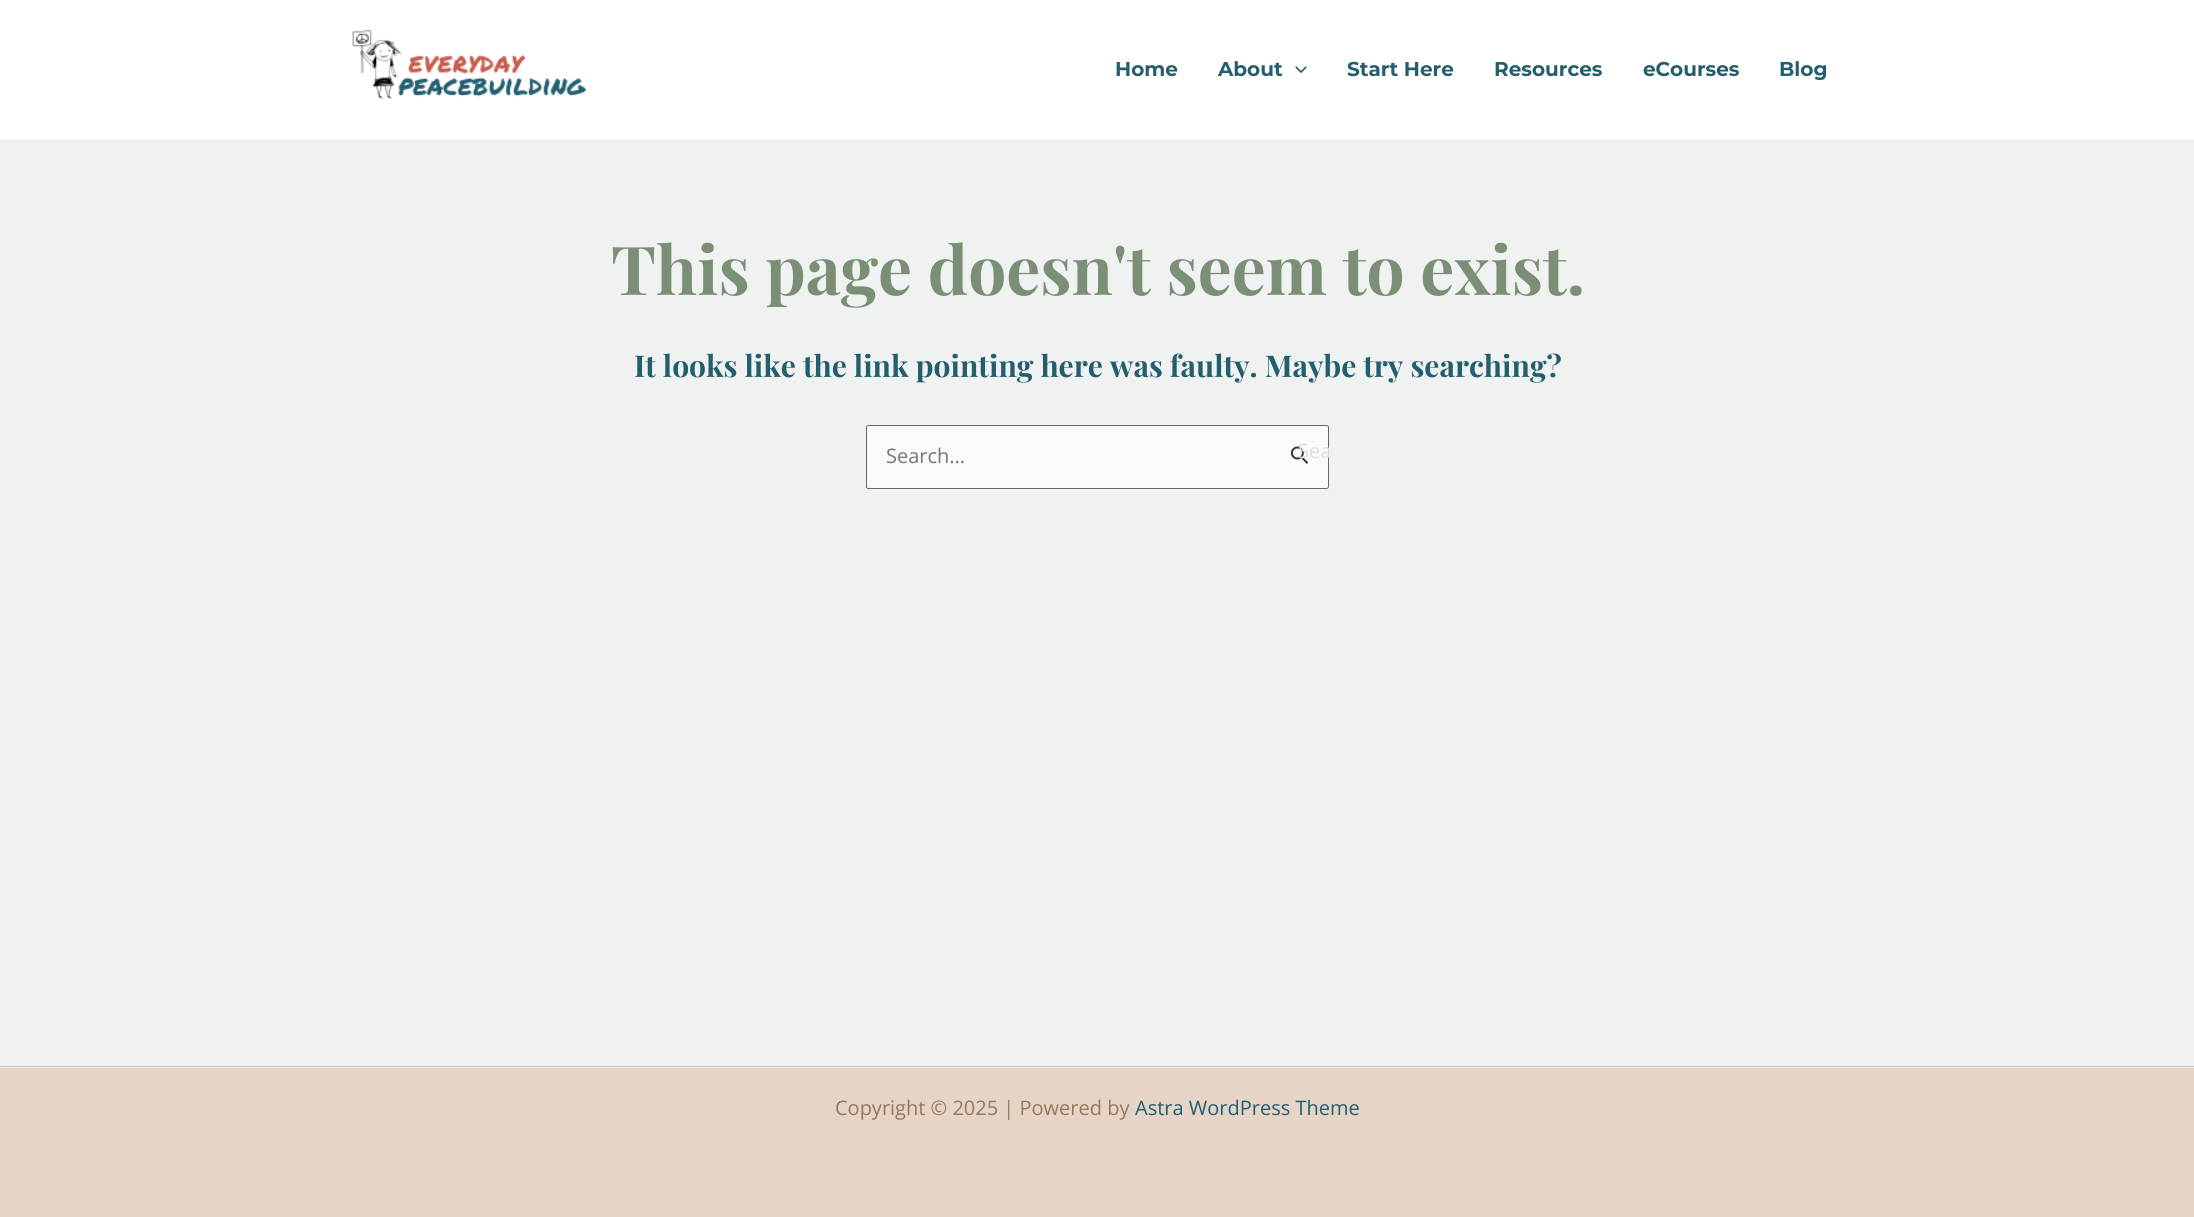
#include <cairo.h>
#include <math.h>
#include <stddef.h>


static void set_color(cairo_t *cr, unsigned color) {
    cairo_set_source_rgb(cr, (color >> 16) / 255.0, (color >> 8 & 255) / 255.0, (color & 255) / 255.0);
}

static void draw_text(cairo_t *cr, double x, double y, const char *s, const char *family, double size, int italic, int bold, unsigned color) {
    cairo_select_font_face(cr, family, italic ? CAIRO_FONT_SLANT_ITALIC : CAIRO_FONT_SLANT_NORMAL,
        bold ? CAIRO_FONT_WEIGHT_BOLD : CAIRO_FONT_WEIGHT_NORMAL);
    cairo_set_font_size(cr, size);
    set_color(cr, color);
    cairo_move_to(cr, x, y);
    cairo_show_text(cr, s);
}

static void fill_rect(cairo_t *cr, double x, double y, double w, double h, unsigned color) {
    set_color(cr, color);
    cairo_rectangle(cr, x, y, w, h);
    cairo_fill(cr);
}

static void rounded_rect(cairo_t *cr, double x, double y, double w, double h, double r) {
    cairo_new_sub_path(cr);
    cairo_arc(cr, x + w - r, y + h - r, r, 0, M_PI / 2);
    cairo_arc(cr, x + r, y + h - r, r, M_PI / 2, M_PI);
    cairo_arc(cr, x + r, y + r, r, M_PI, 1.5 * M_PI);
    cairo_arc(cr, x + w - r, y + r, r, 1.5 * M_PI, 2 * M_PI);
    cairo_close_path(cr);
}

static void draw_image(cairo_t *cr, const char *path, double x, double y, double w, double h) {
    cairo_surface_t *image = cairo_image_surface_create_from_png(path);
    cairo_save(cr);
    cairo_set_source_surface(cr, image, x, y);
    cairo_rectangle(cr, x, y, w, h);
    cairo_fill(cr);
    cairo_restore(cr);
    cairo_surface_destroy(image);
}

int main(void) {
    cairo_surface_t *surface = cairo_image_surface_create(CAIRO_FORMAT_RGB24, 2194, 1217);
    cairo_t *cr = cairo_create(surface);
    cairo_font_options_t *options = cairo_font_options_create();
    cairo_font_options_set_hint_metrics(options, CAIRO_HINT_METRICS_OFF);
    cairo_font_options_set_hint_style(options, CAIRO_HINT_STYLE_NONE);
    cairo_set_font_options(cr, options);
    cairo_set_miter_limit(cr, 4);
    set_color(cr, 0xEFF2F0);
    cairo_paint(cr);
    fill_rect(cr, 0, 0, 2194, 140, 0xFFFFFF);
    fill_rect(cr, 0, 140, 2194, 1, 0xEAEAEA);
    draw_image(cr, "assets/img1.png", 352, 29, 235, 70);
    draw_text(cr, 1115, 76, "Home", "Montserrat", 20, 0, 1, 0x235E6F);
    draw_text(cr, 1218, 76, "About", "Montserrat", 20, 0, 1, 0x235E6F);
    draw_image(cr, "assets/img2.png", 1295, 66, 12, 8);
    draw_text(cr, 1347, 76, "Start Here", "Montserrat", 20, 0, 1, 0x235E6F);
    draw_text(cr, 1494, 76, "Resources", "Montserrat", 20, 0, 1, 0x235E6F);
    draw_text(cr, 1643, 76, "eCourses", "Montserrat", 20, 0, 1, 0x235E6F);
    draw_text(cr, 1779, 76, "Blog", "Montserrat", 20, 0, 1, 0x235E6F);
    draw_text(cr, 611, 295, "This page doesn't seem to exist.", "Playfair Display", 67.5, 0, 1, 0x7A8F76);
    draw_text(cr, 634, 377, "It looks like the link pointing here was faulty. Maybe try searching?", "Playfair Display", 30, 0, 1, 0x235E6F);
    set_color(cr, 0xFAFAFA);
    rounded_rect(cr, 866.5, 425.5, 462, 63, 2);
    cairo_fill_preserve(cr);
    set_color(cr, 0x626A65);
    cairo_set_line_width(cr, 1);
    cairo_stroke(cr);
    draw_text(cr, 886, 463, "Search...", "Open Sans", 20, 0, 0, 0x757575);
    draw_image(cr, "assets/img3.png", 1290, 446, 18, 18);
    cairo_save(cr);
    rounded_rect(cr, 1273, 425, 56, 53, 2.5);
    cairo_clip(cr);
    draw_text(cr, 1298, 458, "Sea", "Open Sans", 20, 0, 0, 0xDFDFDF);
    cairo_restore(cr);
    fill_rect(cr, 0, 1068, 2194, 149, 0xE6D5C7);
    fill_rect(cr, 0, 1066, 2194, 1, 0xB8C9CE);
    draw_text(cr, 835, 1115, "Copyright © 2025 | Powered by", "Open Sans", 20, 0, 0, 0x96785D);
    draw_text(cr, 1135, 1115, "Astra WordPress Theme", "Open Sans", 20, 0, 0, 0x235E6F);
    cairo_surface_write_to_png(surface, "output.png");
    cairo_font_options_destroy(options);
    cairo_destroy(cr);
    cairo_surface_destroy(surface);
    return 0;
}
